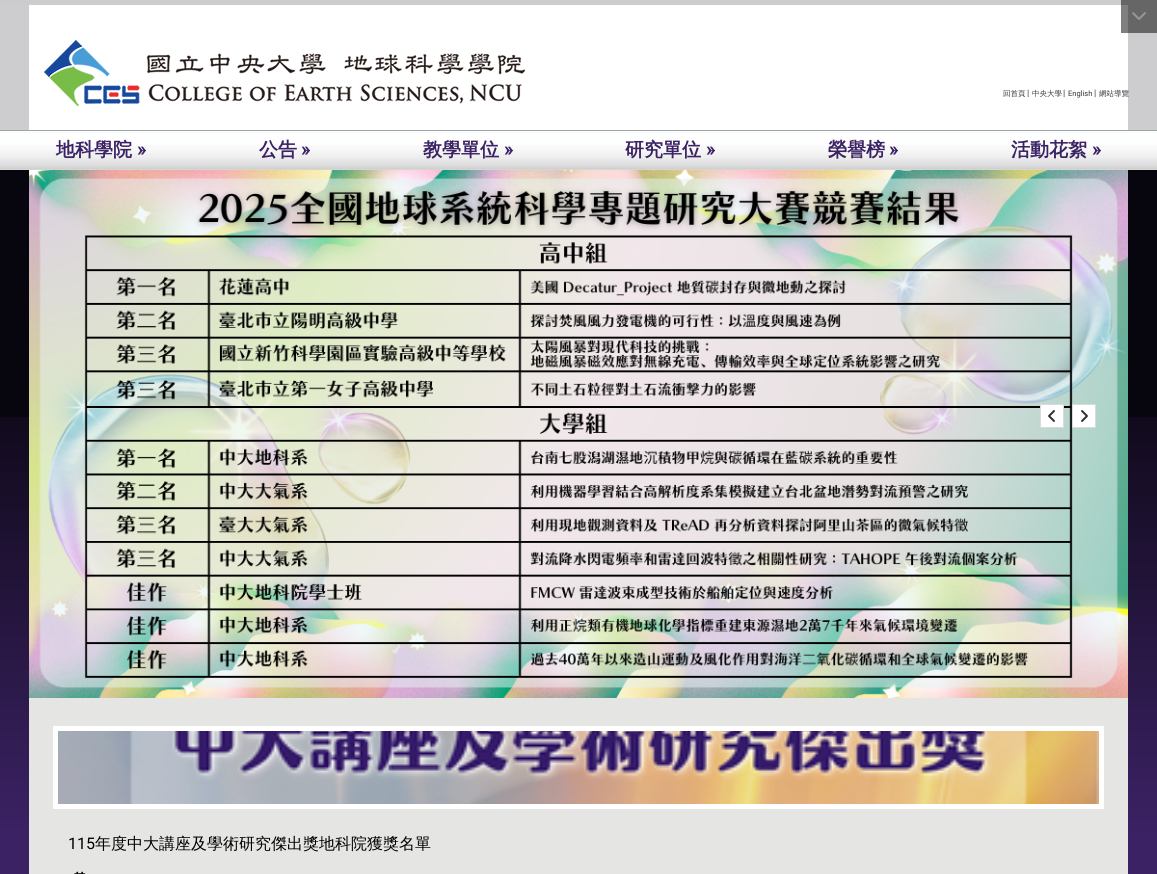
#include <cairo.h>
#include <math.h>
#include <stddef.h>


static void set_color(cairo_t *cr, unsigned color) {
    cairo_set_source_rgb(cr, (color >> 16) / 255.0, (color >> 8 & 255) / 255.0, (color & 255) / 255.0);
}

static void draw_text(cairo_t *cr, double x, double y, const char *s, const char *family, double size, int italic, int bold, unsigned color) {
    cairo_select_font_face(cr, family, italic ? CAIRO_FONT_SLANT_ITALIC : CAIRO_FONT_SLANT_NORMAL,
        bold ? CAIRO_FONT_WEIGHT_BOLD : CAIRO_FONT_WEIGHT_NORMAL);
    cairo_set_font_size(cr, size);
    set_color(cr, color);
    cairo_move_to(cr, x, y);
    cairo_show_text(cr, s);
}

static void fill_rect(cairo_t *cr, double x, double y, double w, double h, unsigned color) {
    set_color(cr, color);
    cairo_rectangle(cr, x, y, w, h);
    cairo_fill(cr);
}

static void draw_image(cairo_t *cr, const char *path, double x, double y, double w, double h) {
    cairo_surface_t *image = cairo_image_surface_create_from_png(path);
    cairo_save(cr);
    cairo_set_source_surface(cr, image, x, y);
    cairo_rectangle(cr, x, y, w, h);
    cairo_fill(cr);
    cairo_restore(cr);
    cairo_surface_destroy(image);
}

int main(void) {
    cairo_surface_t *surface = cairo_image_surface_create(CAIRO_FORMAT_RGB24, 1157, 874);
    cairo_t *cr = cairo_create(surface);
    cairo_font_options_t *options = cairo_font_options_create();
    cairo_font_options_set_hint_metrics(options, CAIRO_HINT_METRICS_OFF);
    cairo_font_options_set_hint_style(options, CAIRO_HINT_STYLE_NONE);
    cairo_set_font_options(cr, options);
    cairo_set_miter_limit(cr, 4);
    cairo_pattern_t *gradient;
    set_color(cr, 0xFFFFFF);
    cairo_paint(cr);
    fill_rect(cr, 0, 0, 1157, 5, 0x000000);
    gradient = cairo_pattern_create_linear(578, 0, 579, 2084);
    cairo_pattern_add_color_stop_rgba(gradient, 0.2, 0.027, 0.024, 0.055, 1);
    cairo_pattern_add_color_stop_rgba(gradient, 0.2, 0.067, 0.039, 0.11, 1);
    cairo_pattern_add_color_stop_rgba(gradient, 0.4, 0.231, 0.133, 0.392, 1);
    cairo_set_source(cr, gradient);
    cairo_pattern_destroy(gradient);
    cairo_rectangle(cr, 0, 5, 1157, 869);
    cairo_fill(cr);
    fill_rect(cr, 29, 5, 1099, 125, 0xFFFFFF);
    cairo_set_source_rgba(cr, 1, 1, 1, 0.8);
    cairo_rectangle(cr, 0, 0, 1157, 130);
    cairo_fill(cr);
    cairo_set_source_rgba(cr, 0, 0, 0, 0.5);
    cairo_rectangle(cr, 1121, 0, 36, 33);
    cairo_fill(cr);
    draw_image(cr, "assets/img1.png", 1132, 12, 14, 8);
    draw_image(cr, "assets/img2.png", 44, 40, 481, 66);
    draw_text(cr, 1003, 96, "回首頁", "WenQuanYi Zen Hei Medium", 7.5, 0, 0, 0x333333);
    draw_text(cr, 1027, 96, "|", "Roboto", 9, 0, 0, 0x333333);
    draw_text(cr, 1032, 96, "中央大學", "WenQuanYi Zen Hei Medium", 7.5, 0, 0, 0x333333);
    draw_text(cr, 1063, 96, "|", "Roboto", 9, 0, 0, 0x333333);
    draw_text(cr, 1068, 96, "English", "Roboto", 7.5, 0, 0, 0x333333);
    draw_text(cr, 1094, 96, "|", "Roboto", 9, 0, 0, 0x333333);
    draw_text(cr, 1099, 96, "網站導覽", "WenQuanYi Zen Hei Medium", 7.5, 0, 0, 0x333333);
    draw_image(cr, "assets/img3.png", 0, 130, 1157, 40);
    draw_text(cr, 56, 156, "地科學院", "WenQuanYi Zen Hei", 19, 0, 1, 0x3B2264);
    draw_text(cr, 137, 156, "»", "Roboto", 19, 0, 1, 0x3B2264);
    draw_text(cr, 259, 156, "公告", "WenQuanYi Zen Hei", 19, 0, 1, 0x3B2264);
    draw_text(cr, 301, 156, "»", "Roboto", 19, 0, 1, 0x3B2264);
    draw_text(cr, 423, 156, "教學單位", "WenQuanYi Zen Hei", 19, 0, 1, 0x3B2264);
    draw_text(cr, 504, 156, "»", "Roboto", 19, 0, 1, 0x3B2264);
    draw_text(cr, 625, 156, "研究單位", "WenQuanYi Zen Hei", 19, 0, 1, 0x3B2264);
    draw_text(cr, 706, 156, "»", "Roboto", 19, 0, 1, 0x3B2264);
    draw_text(cr, 828, 156, "榮譽榜", "WenQuanYi Zen Hei", 19, 0, 1, 0x3B2264);
    draw_text(cr, 889, 156, "»", "Roboto", 19, 0, 1, 0x3B2264);
    draw_text(cr, 1011, 156, "活動花絮", "WenQuanYi Zen Hei", 19, 0, 1, 0x3B2264);
    draw_text(cr, 1092, 156, "»", "Roboto", 19, 0, 1, 0x3B2264);
    draw_image(cr, "assets/img4.png", 29, 170, 1099, 528);
    set_color(cr, 0xFFFFFF);
    cairo_rectangle(cr, 1040.5, 404.5, 23, 23);
    cairo_fill_preserve(cr);
    set_color(cr, 0xDADADA);
    cairo_set_line_width(cr, 1);
    cairo_stroke(cr);
    draw_image(cr, "assets/img5.png", 1048, 410, 7, 12);
    set_color(cr, 0xFFFFFF);
    cairo_rectangle(cr, 1072.5, 404.5, 23, 23);
    cairo_fill_preserve(cr);
    set_color(cr, 0xDADADA);
    cairo_stroke(cr);
    draw_image(cr, "assets/img6.png", 1081, 410, 7, 12);
    fill_rect(cr, 29, 698, 1099, 176, 0xE5E5E3);
    cairo_rectangle(cr, 55.5, 728.5, 1046, 78);
    set_color(cr, 0xFFFFFF);
    cairo_set_line_width(cr, 5);
    cairo_stroke(cr);
    draw_image(cr, "assets/img7.png", 58, 731, 1041, 73);
    draw_text(cr, 68, 849, "115", "Roboto", 16, 0, 0, 0x000000);
    draw_text(cr, 95, 849, "年度中大講座及學術研究傑出獎地科院獲獎名單", "WenQuanYi Zen Hei Medium", 16, 0, 0, 0x000000);
    draw_image(cr, "assets/img8.png", 74, 871, 12, 3);
    cairo_surface_write_to_png(surface, "output.png");
    cairo_font_options_destroy(options);
    cairo_destroy(cr);
    cairo_surface_destroy(surface);
    return 0;
}
